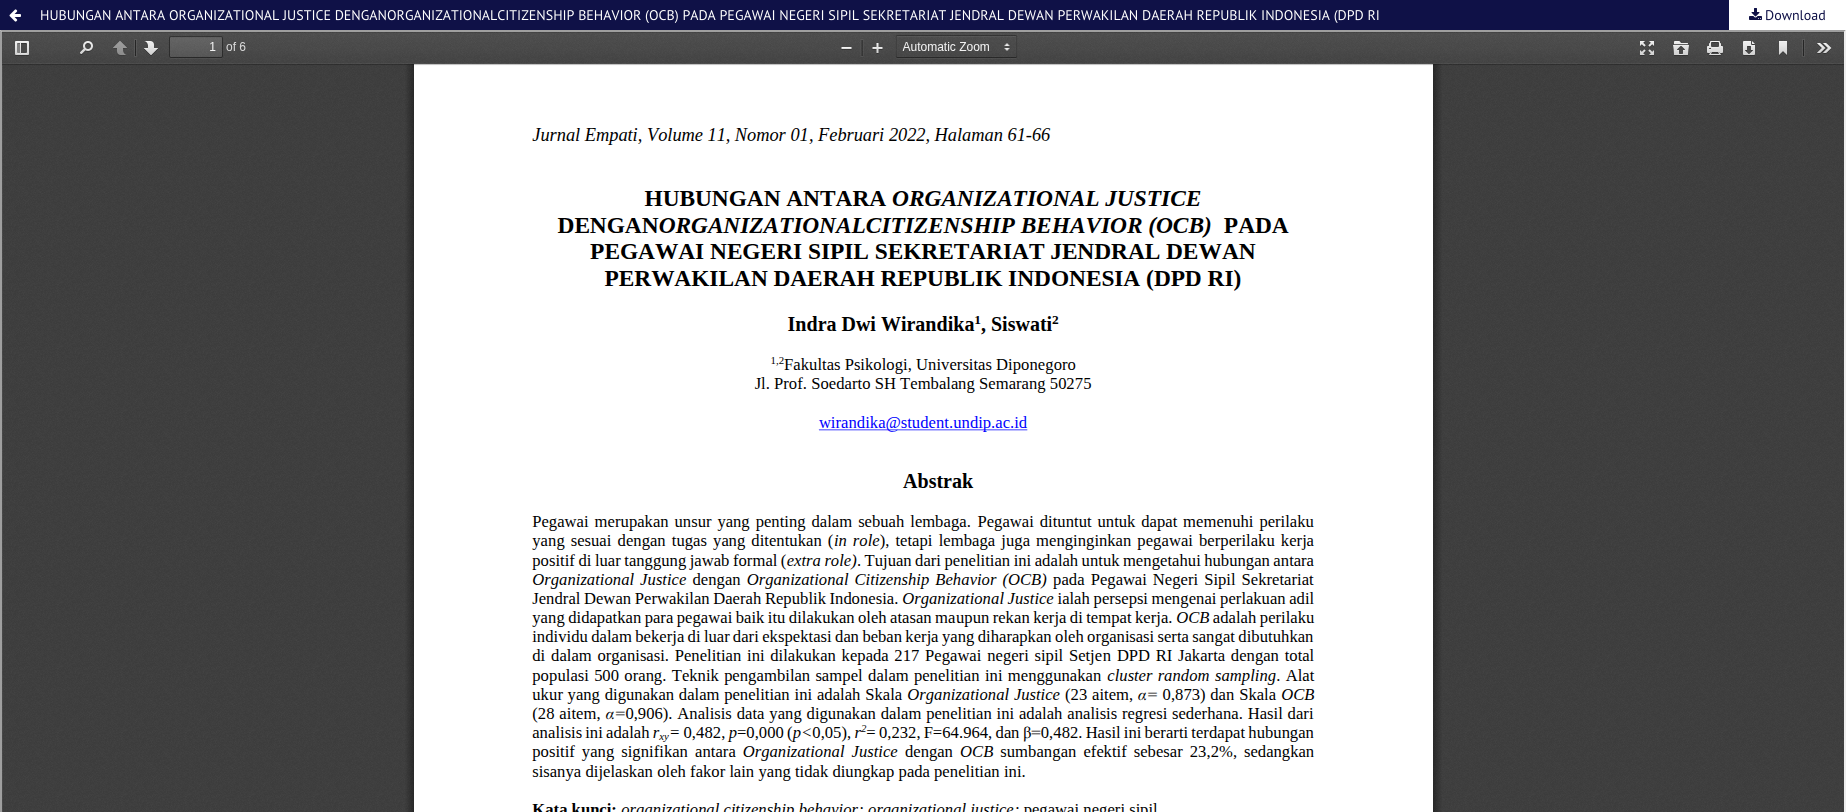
#include <cairo.h>
#include <math.h>
#include <stddef.h>


static void set_color(cairo_t *cr, unsigned color) {
    cairo_set_source_rgb(cr, (color >> 16) / 255.0, (color >> 8 & 255) / 255.0, (color & 255) / 255.0);
}

static void draw_text(cairo_t *cr, double x, double y, const char *s, const char *family, double size, int italic, int bold, unsigned color) {
    cairo_select_font_face(cr, family, italic ? CAIRO_FONT_SLANT_ITALIC : CAIRO_FONT_SLANT_NORMAL,
        bold ? CAIRO_FONT_WEIGHT_BOLD : CAIRO_FONT_WEIGHT_NORMAL);
    cairo_set_font_size(cr, size);
    set_color(cr, color);
    cairo_move_to(cr, x, y);
    cairo_show_text(cr, s);
}

static void fill_rect(cairo_t *cr, double x, double y, double w, double h, unsigned color) {
    set_color(cr, color);
    cairo_rectangle(cr, x, y, w, h);
    cairo_fill(cr);
}

static void draw_image(cairo_t *cr, const char *path, double x, double y, double w, double h) {
    cairo_surface_t *image = cairo_image_surface_create_from_png(path);
    cairo_save(cr);
    cairo_set_source_surface(cr, image, x, y);
    cairo_rectangle(cr, x, y, w, h);
    cairo_fill(cr);
    cairo_restore(cr);
    cairo_surface_destroy(image);
}

int main(void) {
    cairo_surface_t *surface = cairo_image_surface_create(CAIRO_FORMAT_RGB24, 1846, 812);
    cairo_t *cr = cairo_create(surface);
    cairo_font_options_t *options = cairo_font_options_create();
    cairo_font_options_set_hint_metrics(options, CAIRO_HINT_METRICS_OFF);
    cairo_font_options_set_hint_style(options, CAIRO_HINT_STYLE_NONE);
    cairo_set_font_options(cr, options);
    cairo_set_miter_limit(cr, 4);
    set_color(cr, 0xFFFFFF);
    cairo_paint(cr);
    fill_rect(cr, 0, 0, 1729, 30, 0x0F1147);
    draw_image(cr, "assets/img1.png", 9, 9, 12, 13);
    draw_text(cr, 40, 20, "HUBUNGAN ANTARA ORGANIZATIONAL JUSTICE DENGANORGANIZATIONALCITIZENSHIP BEHAVIOR (OCB) PADA PEGAWAI NEGERI SIPIL SEKRETARIAT JENDRAL DEWAN PERWAKILAN DAERAH REPUBLIK INDONESIA (DPD RI", "PT Sans", 14, 0, 0, 0xFFFFFF);
    draw_image(cr, "assets/img2.png", 1749, 8, 13, 12);
    draw_text(cr, 1765, 20, "Download", "PT Sans", 14, 0, 0, 0x0F1147);
    set_color(cr, 0x9F9F9F);
    cairo_new_path(cr);
    cairo_move_to(cr, 0, 30);
    cairo_line_to(cr, 1846, 30);
    cairo_line_to(cr, 1844, 32);
    cairo_line_to(cr, 2, 32);
    cairo_close_path(cr);
    cairo_fill(cr);
    cairo_new_path(cr);
    cairo_move_to(cr, 0, 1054);
    cairo_line_to(cr, 0, 30);
    cairo_line_to(cr, 2, 32);
    cairo_line_to(cr, 2, 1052);
    cairo_close_path(cr);
    cairo_fill(cr);
    draw_image(cr, "assets/img3.png", 2, 32, 1842, 780);
    set_color(cr, 0xEEEEEE);
    cairo_new_path(cr);
    cairo_move_to(cr, 1846, 30);
    cairo_line_to(cr, 1846, 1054);
    cairo_line_to(cr, 1844, 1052);
    cairo_line_to(cr, 1844, 32);
    cairo_close_path(cr);
    cairo_fill(cr);
    cairo_surface_write_to_png(surface, "output.png");
    cairo_font_options_destroy(options);
    cairo_destroy(cr);
    cairo_surface_destroy(surface);
    return 0;
}
